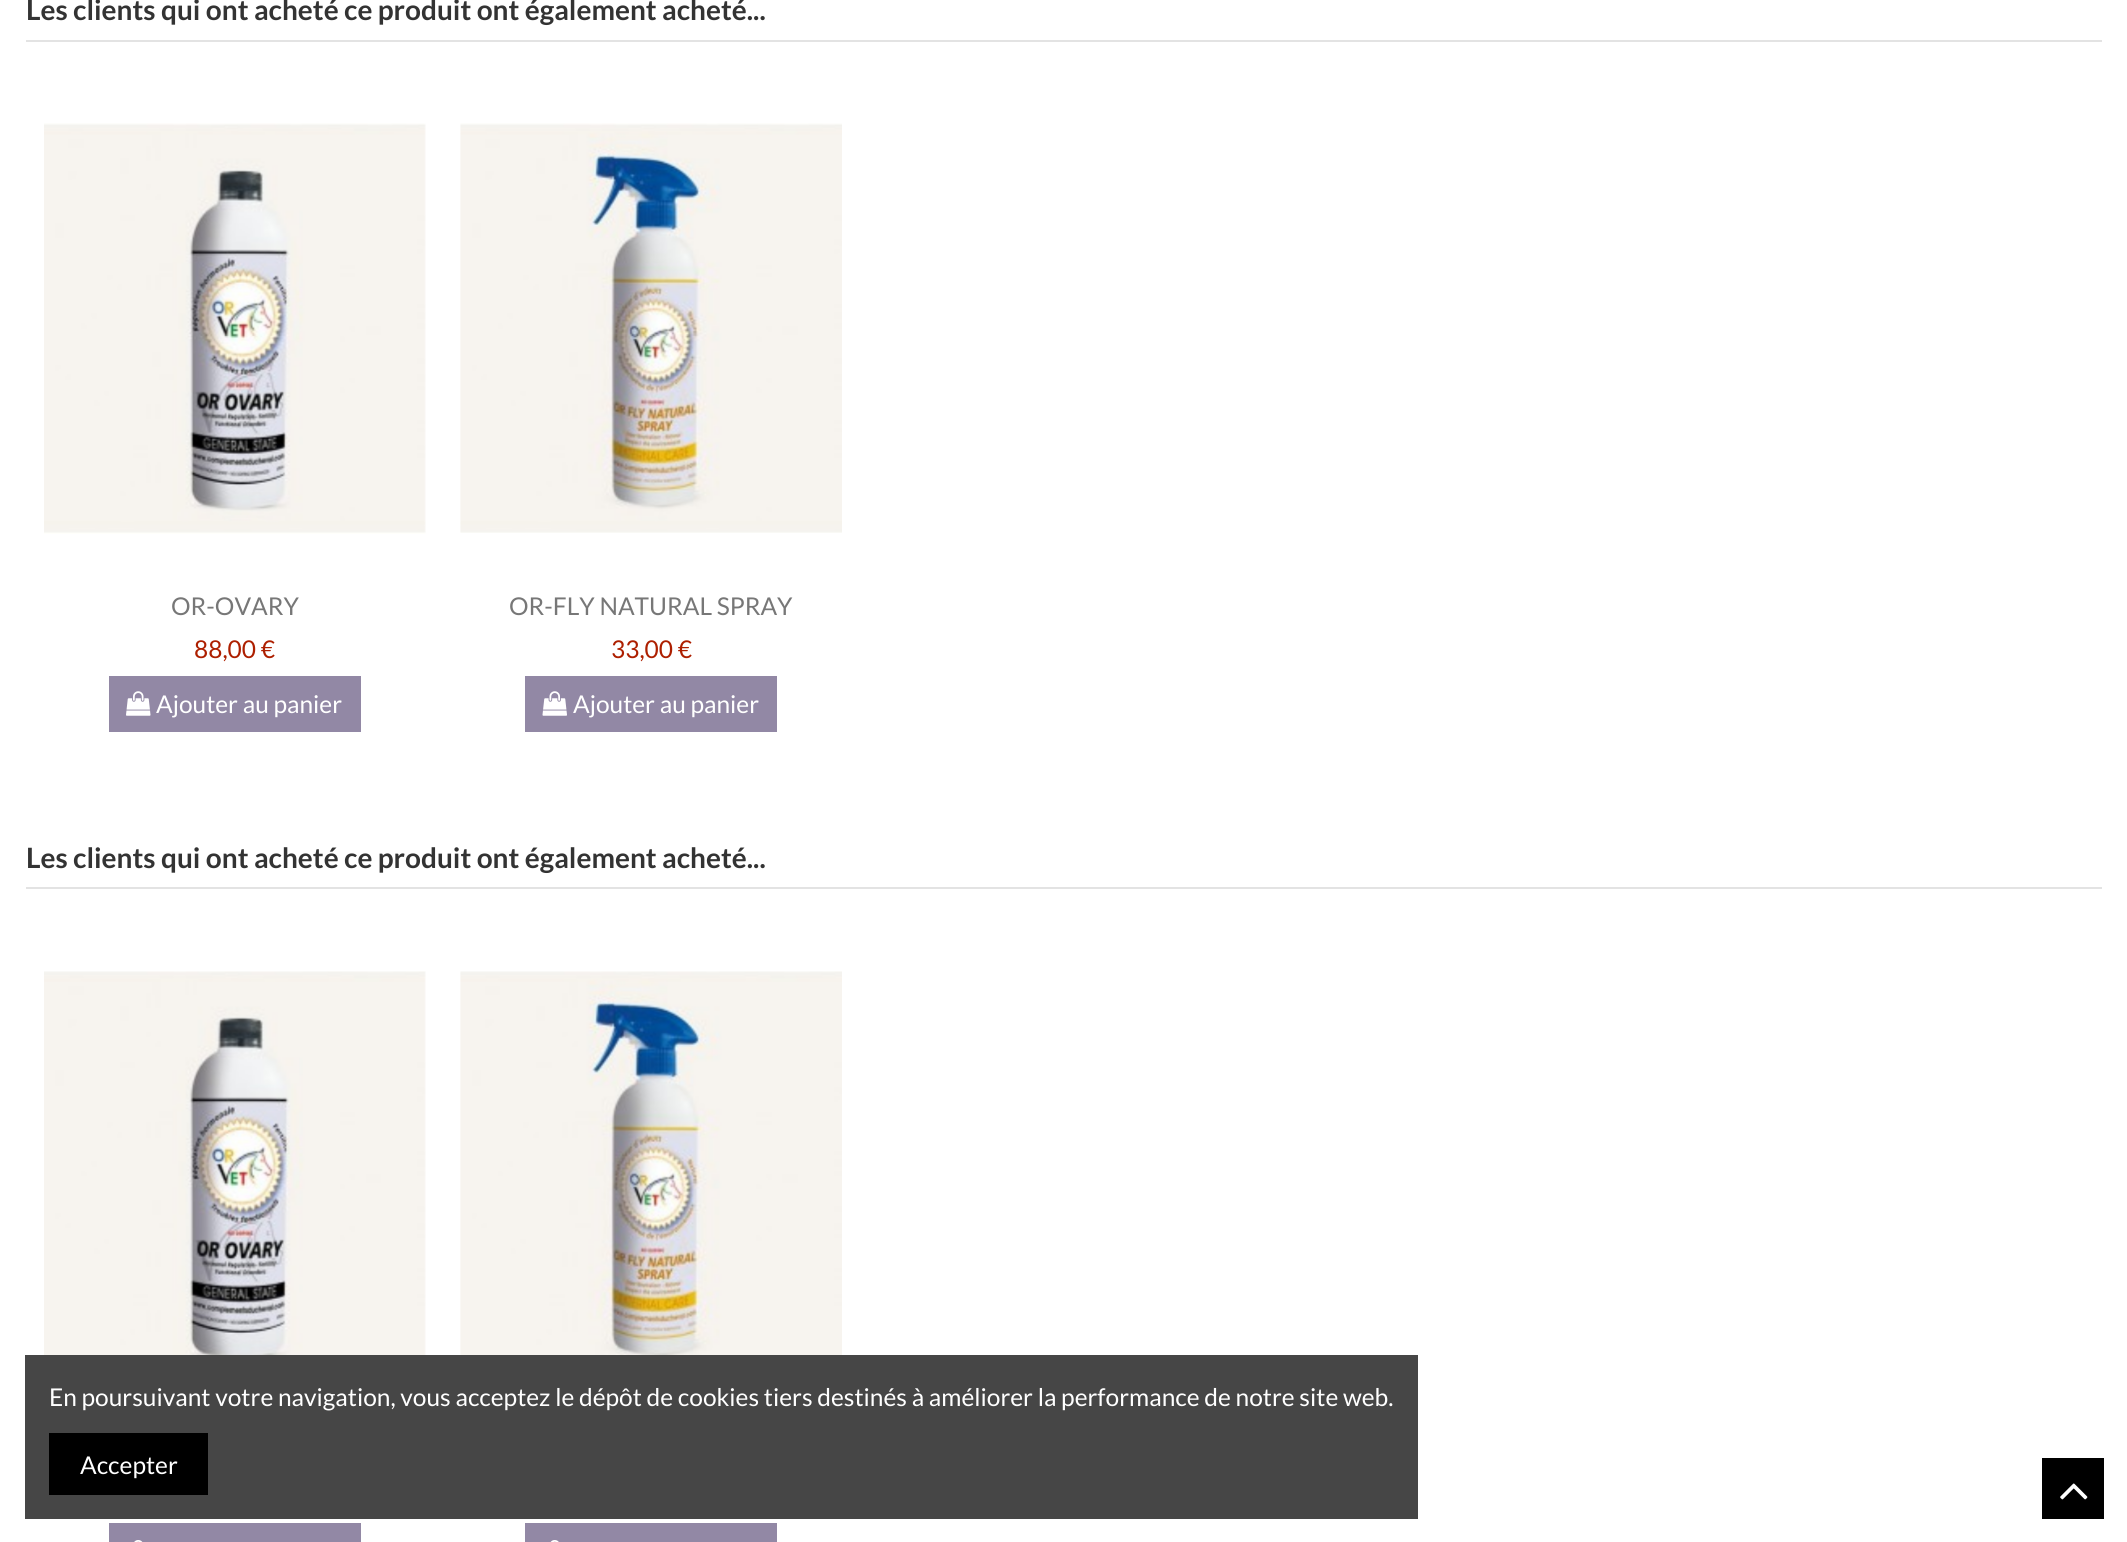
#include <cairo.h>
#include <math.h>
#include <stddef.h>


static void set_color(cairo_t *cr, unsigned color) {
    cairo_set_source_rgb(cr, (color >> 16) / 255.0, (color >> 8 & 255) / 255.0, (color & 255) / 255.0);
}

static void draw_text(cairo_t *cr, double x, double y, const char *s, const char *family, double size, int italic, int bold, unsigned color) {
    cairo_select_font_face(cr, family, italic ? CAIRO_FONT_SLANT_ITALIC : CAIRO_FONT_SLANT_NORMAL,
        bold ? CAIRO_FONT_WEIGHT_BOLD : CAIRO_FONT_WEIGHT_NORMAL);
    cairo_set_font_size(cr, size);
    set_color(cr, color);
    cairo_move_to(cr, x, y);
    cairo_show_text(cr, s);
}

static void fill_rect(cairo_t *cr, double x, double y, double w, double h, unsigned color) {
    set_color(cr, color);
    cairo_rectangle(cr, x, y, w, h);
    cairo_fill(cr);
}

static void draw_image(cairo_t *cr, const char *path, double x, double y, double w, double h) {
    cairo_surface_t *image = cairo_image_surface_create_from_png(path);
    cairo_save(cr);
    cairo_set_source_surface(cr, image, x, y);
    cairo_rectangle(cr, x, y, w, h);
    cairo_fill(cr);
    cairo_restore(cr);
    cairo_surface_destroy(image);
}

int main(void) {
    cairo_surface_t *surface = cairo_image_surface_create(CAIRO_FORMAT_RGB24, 2127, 1542);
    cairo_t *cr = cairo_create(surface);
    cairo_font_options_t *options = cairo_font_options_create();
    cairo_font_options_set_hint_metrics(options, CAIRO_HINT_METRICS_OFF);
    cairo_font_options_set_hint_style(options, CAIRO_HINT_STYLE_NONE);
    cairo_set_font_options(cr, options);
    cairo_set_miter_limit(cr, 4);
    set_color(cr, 0xFFFFFF);
    cairo_paint(cr);
    fill_rect(cr, 26, 40, 2076, 2, 0xE3E3E3);
    draw_text(cr, 26, 20, "Les clients qui ont acheté ce produit ont également acheté...", "Lato", 28, 0, 1, 0x333333);
    draw_image(cr, "assets/img1.png", 44, 123, 382, 411);
    draw_text(cr, 171, 615, "OR-OVARY", "Lato", 24.5, 0, 0, 0x777777);
    draw_text(cr, 194, 658, "88,00 €", "Lato", 24.5, 0, 0, 0xAD1F00);
    fill_rect(cr, 109, 676, 252, 56, 0x9288A5);
    draw_image(cr, "assets/img2.png", 126, 691, 25, 25);
    draw_text(cr, 156, 713, "Ajouter au panier", "Lato", 24.5, 0, 0, 0xFFFFFF);
    draw_image(cr, "assets/img3.png", 460, 123, 382, 410);
    draw_text(cr, 509, 615, "OR-FLY NATURAL SPRAY", "Lato", 24.5, 0, 0, 0x777777);
    draw_text(cr, 611, 658, "33,00 €", "Lato", 24.5, 0, 0, 0xAD1F00);
    fill_rect(cr, 525, 676, 252, 56, 0x9288A5);
    draw_image(cr, "assets/img4.png", 542, 691, 25, 25);
    draw_text(cr, 573, 713, "Ajouter au panier", "Lato", 24.5, 0, 0, 0xFFFFFF);
    fill_rect(cr, 26, 887, 2076, 2, 0xE3E3E3);
    draw_text(cr, 26, 868, "Les clients qui ont acheté ce produit ont également acheté...", "Lato", 28, 0, 1, 0x333333);
    draw_image(cr, "assets/img5.png", 44, 971, 382, 384);
    fill_rect(cr, 109, 1523, 252, 19, 0x9288A5);
    draw_image(cr, "assets/img6.png", 134, 1540, 9, 2);
    draw_image(cr, "assets/img7.png", 460, 971, 382, 384);
    fill_rect(cr, 525, 1523, 252, 19, 0x9288A5);
    draw_image(cr, "assets/img8.png", 550, 1540, 9, 2);
    fill_rect(cr, 25, 1355, 1393, 164, 0x464646);
    draw_text(cr, 49, 1406, "En poursuivant votre navigation, vous acceptez le dépôt de cookies tiers destinés à améliorer la performance de notre site web.", "Lato", 24.5, 0, 0, 0xFFFFFF);
    fill_rect(cr, 49, 1433, 159, 62, 0x000000);
    draw_text(cr, 80, 1474, "Accepter", "Lato", 24.5, 0, 0, 0xFFFFFF);
    fill_rect(cr, 2042, 1458, 62, 61, 0x000000);
    draw_image(cr, "assets/img9.png", 2060, 1483, 28, 17);
    cairo_surface_write_to_png(surface, "output.png");
    cairo_font_options_destroy(options);
    cairo_destroy(cr);
    cairo_surface_destroy(surface);
    return 0;
}
